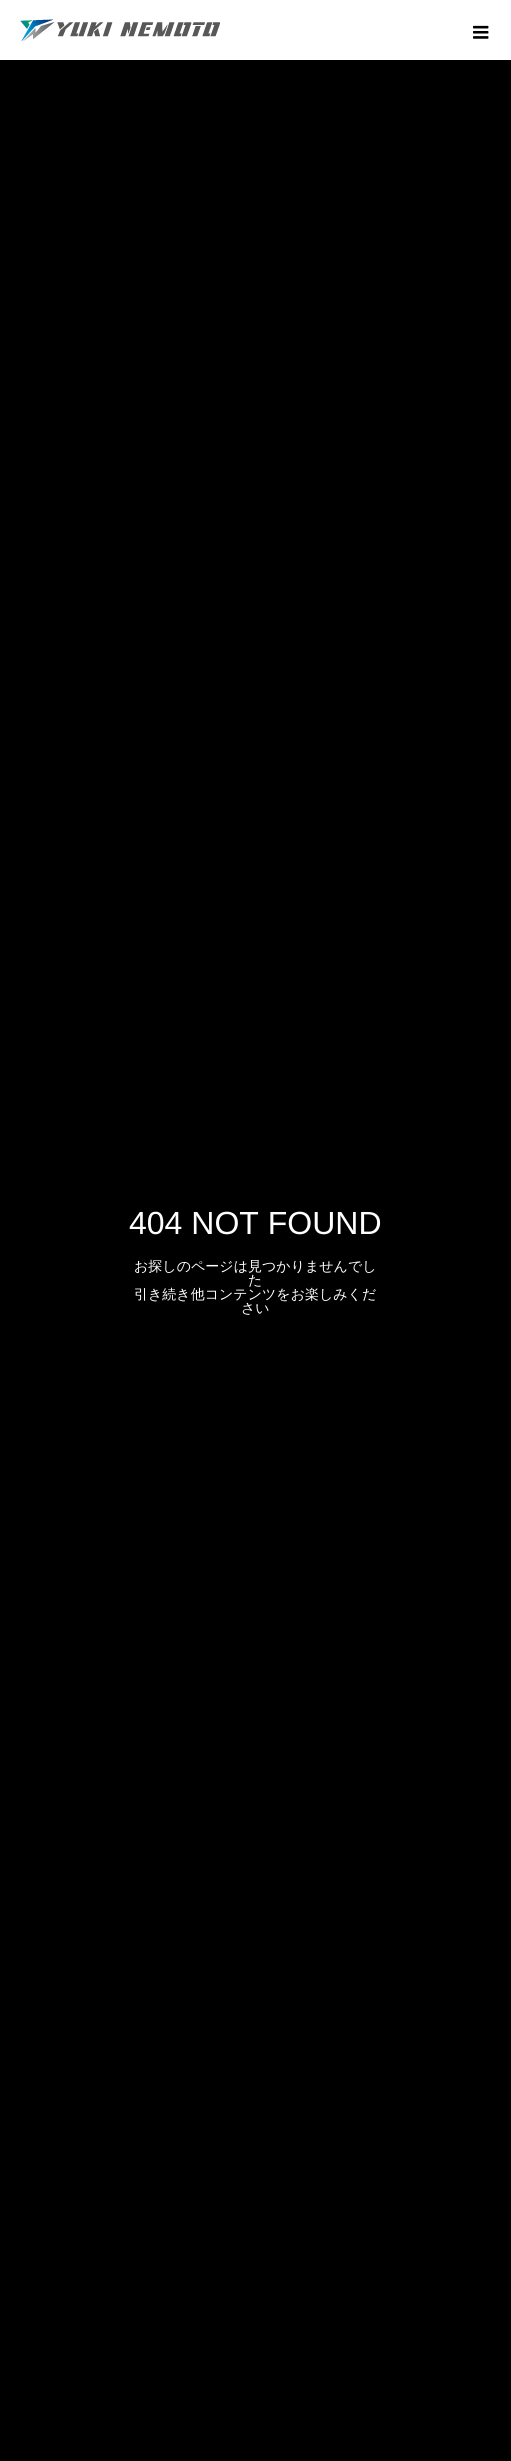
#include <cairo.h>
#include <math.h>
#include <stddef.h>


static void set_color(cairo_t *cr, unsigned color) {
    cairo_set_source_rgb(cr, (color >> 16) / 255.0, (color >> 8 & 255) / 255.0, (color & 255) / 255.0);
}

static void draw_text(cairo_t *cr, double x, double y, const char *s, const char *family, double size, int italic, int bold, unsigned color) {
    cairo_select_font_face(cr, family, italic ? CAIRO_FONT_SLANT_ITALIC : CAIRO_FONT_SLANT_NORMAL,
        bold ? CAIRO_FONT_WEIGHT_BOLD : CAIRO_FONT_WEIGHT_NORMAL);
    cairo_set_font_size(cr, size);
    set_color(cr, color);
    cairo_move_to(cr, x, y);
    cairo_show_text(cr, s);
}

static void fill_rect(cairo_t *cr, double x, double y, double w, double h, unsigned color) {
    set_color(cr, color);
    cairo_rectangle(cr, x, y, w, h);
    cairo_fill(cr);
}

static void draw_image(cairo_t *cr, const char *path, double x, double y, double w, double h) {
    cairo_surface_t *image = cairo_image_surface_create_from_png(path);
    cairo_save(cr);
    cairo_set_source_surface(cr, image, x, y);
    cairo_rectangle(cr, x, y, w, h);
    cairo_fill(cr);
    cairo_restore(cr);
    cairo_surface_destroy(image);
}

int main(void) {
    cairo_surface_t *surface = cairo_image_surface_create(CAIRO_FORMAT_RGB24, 511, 2461);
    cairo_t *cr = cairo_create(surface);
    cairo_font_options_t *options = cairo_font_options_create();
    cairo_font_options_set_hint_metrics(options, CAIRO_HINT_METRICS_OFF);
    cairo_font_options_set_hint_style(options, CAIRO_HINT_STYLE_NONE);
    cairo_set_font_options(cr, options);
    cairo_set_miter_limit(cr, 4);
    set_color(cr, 0xFFFFFF);
    cairo_paint(cr);
    draw_image(cr, "assets/img1.png", 20, 19, 200, 22);
    draw_image(cr, "assets/img2.png", 473, 25, 16, 14);
    fill_rect(cr, 0, 60, 511, 2401, 0x000000);
    draw_text(cr, 129, 1234, "404 NOT FOUND", "Liberation Sans", 32, 0, 0, 0xFFFFFF);
    draw_text(cr, 134, 1271, "お探しのページは見つかりませんでし", "WenQuanYi Zen Hei Medium", 14, 0, 0, 0xFFFFFF);
    draw_text(cr, 248, 1285, "た", "WenQuanYi Zen Hei Medium", 14, 0, 0, 0xFFFFFF);
    draw_text(cr, 134, 1299, "引き続き他コンテンツをお楽しみくだ", "WenQuanYi Zen Hei Medium", 14, 0, 0, 0xFFFFFF);
    draw_text(cr, 241, 1313, "さい", "WenQuanYi Zen Hei Medium", 14, 0, 0, 0xFFFFFF);
    cairo_surface_write_to_png(surface, "output.png");
    cairo_font_options_destroy(options);
    cairo_destroy(cr);
    cairo_surface_destroy(surface);
    return 0;
}
